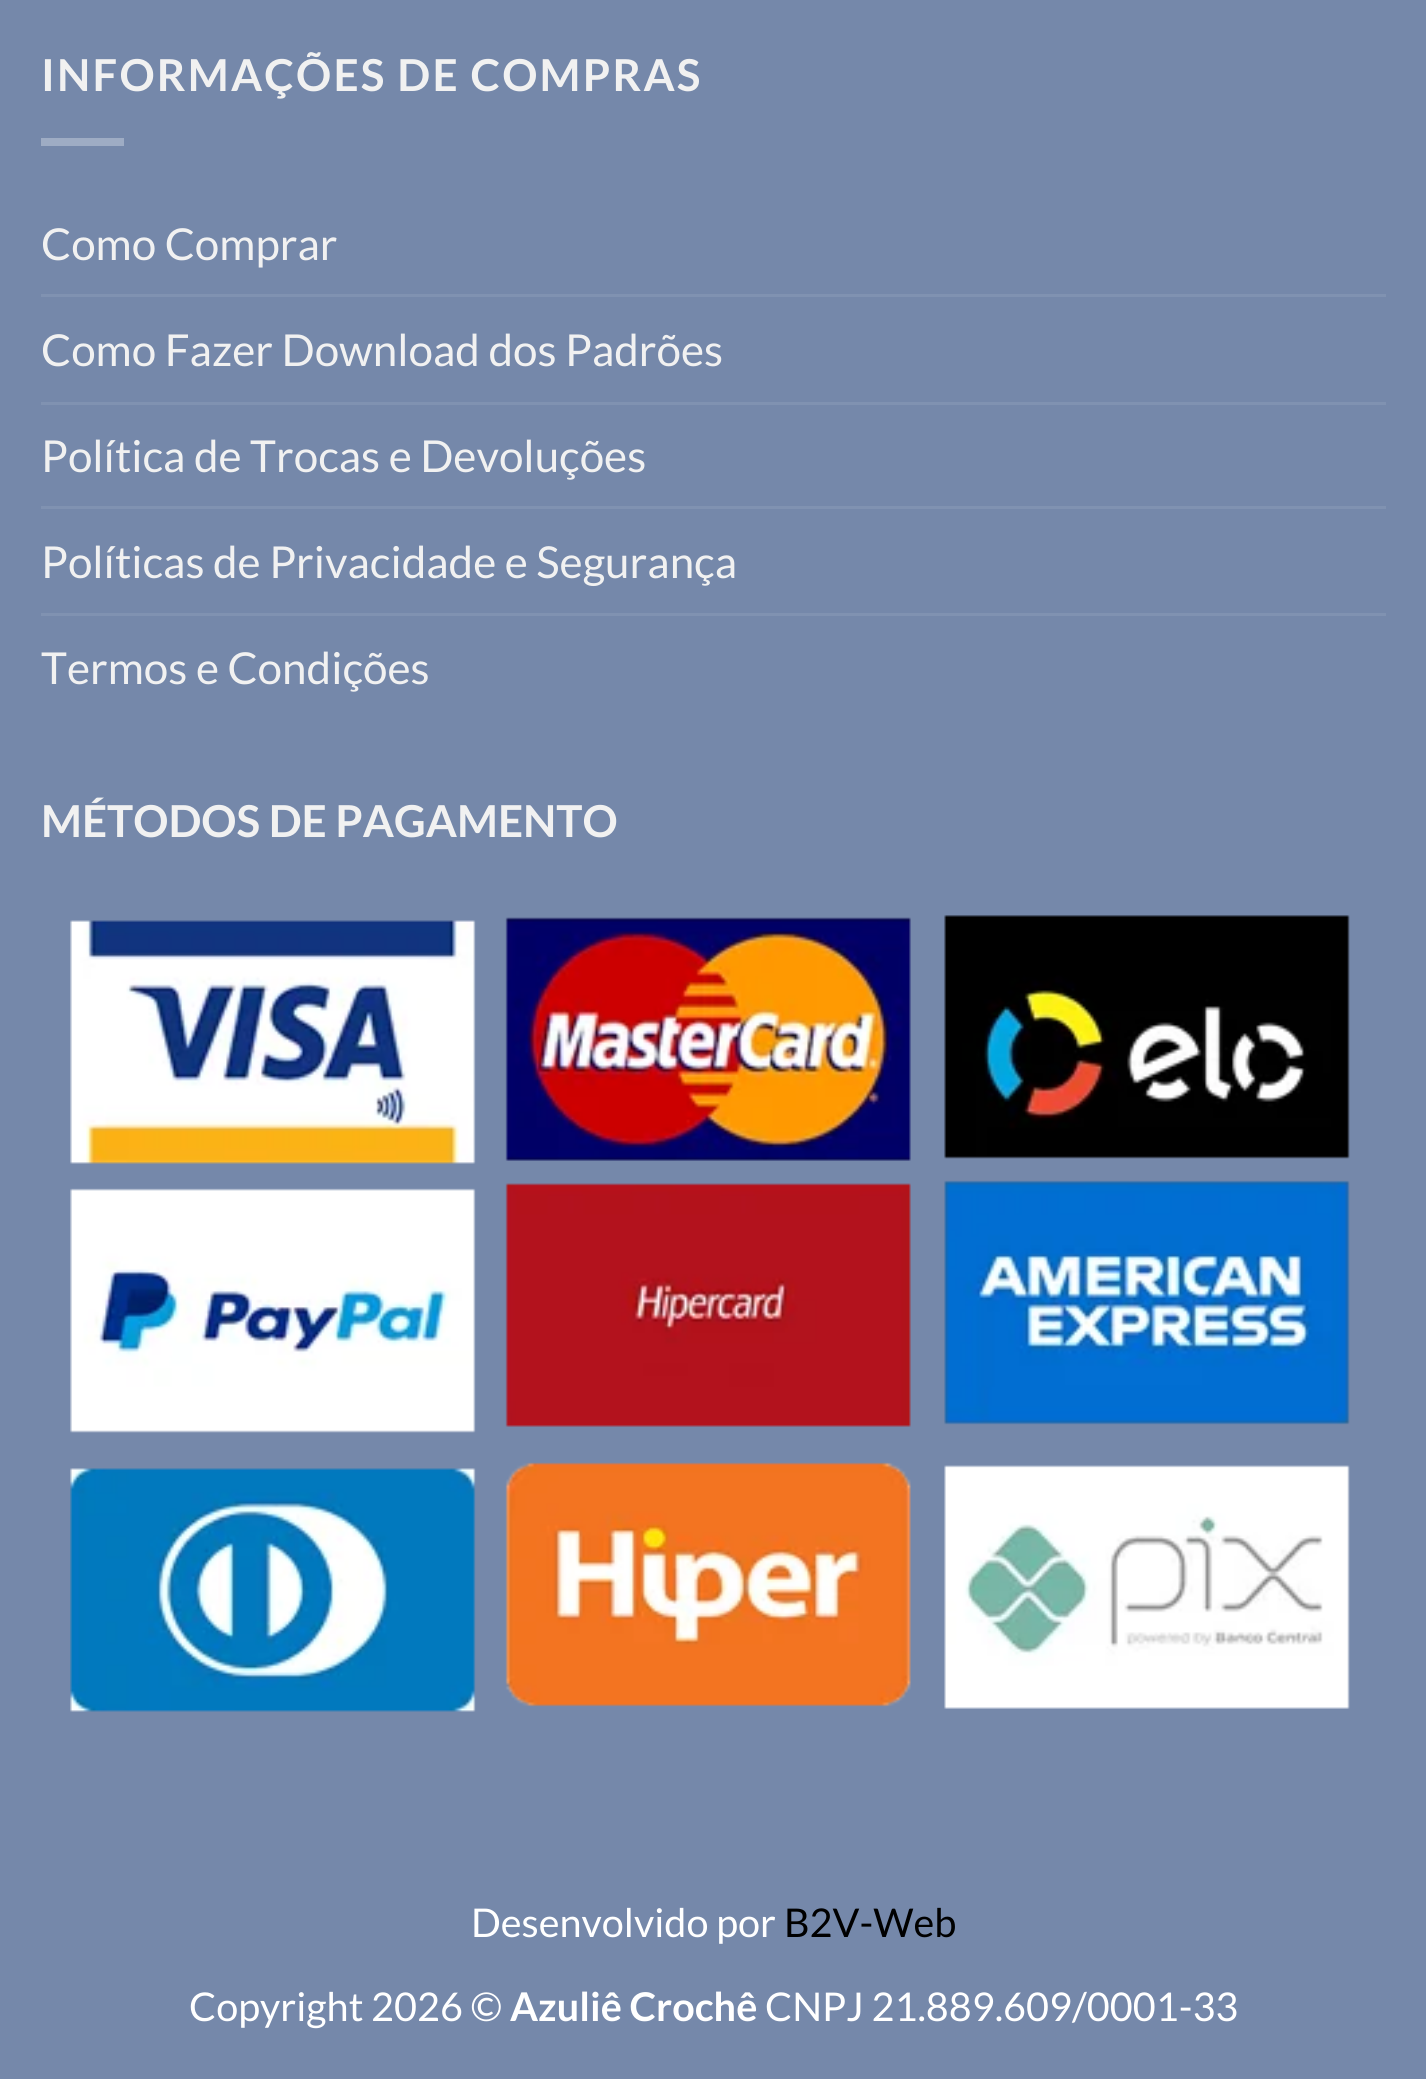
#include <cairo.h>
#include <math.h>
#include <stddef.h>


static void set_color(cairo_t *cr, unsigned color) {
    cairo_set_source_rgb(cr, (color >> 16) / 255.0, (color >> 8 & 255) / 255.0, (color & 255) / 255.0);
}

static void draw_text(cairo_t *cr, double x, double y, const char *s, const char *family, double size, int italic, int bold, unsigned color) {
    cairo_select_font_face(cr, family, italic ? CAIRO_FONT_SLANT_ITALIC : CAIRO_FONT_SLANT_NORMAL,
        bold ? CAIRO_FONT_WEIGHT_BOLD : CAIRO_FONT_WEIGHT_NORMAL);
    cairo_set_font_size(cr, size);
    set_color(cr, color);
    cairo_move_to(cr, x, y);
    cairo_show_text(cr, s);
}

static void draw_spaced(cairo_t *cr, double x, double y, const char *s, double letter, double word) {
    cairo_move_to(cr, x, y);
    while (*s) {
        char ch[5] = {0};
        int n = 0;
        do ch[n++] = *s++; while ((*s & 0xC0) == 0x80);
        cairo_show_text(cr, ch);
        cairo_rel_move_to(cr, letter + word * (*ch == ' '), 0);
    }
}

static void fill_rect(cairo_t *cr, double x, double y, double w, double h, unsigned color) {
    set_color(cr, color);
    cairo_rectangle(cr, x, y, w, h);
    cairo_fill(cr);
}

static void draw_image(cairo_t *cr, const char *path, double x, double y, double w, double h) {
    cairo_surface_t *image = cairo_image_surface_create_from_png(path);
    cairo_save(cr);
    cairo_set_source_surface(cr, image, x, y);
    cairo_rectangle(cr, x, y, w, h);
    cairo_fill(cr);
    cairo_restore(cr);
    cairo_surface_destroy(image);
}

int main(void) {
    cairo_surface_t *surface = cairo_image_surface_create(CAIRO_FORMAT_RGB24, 1426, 2079);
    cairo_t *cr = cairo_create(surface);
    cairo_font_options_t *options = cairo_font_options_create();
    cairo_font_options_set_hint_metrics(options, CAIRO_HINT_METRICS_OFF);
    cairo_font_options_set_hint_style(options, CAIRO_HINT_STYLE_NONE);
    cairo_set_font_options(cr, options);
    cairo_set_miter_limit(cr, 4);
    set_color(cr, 0x7588AA);
    cairo_paint(cr);
    cairo_select_font_face(cr, "Lato", CAIRO_FONT_SLANT_NORMAL, CAIRO_FONT_WEIGHT_BOLD);
    cairo_set_font_size(cr, 44);
    set_color(cr, 0xF1F1F1);
    draw_spaced(cr, 41, 91, "INFORMAÇÕES DE COMPRAS", 2.2, 0);
    fill_rect(cr, 41, 138, 83, 8, 0x9EACC4);
    draw_text(cr, 41, 260, "Como Comprar", "Lato", 44, 0, 0, 0xF1F1F1);
    fill_rect(cr, 41, 294, 1345, 3, 0x8092B1);
    draw_text(cr, 41, 366, "Como Fazer Download dos Padrões", "Lato", 44, 0, 0, 0xF1F1F1);
    fill_rect(cr, 41, 402, 1345, 3, 0x8092B1);
    draw_text(cr, 41, 472, "Política de Trocas e Devoluções", "Lato", 44, 0, 0, 0xF1F1F1);
    fill_rect(cr, 41, 506, 1345, 3, 0x8092B1);
    draw_text(cr, 41, 578, "Políticas de Privacidade e Segurança", "Lato", 44, 0, 0, 0xF1F1F1);
    fill_rect(cr, 41, 613, 1345, 3, 0x8092B1);
    draw_text(cr, 41, 684, "Termos e Condições", "Lato", 44, 0, 0, 0xF1F1F1);
    draw_text(cr, 41, 837, "MÉTODOS DE PAGAMENTO", "Lato", 44, 0, 1, 0xF1F1F1);
    draw_image(cr, "assets/img1.png", 70, 915, 1280, 797);
    draw_text(cr, 471, 1937, "Desenvolvido por", "Lato", 39.6, 0, 0, 0xFFFFFF);
    draw_text(cr, 784, 1937, "B2V-Web", "Lato", 39.6, 0, 0, 0x000000);
    draw_text(cr, 189, 2021, "Copyright 2026 ©", "Lato", 39.6, 0, 0, 0xFFFFFF);
    draw_text(cr, 510, 2021, "Azuliê Crochê", "Lato", 39.6, 0, 1, 0xFFFFFF);
    draw_text(cr, 765, 2021, "CNPJ 21.889.609/0001-33", "Lato", 39.6, 0, 0, 0xFFFFFF);
    cairo_surface_write_to_png(surface, "output.png");
    cairo_font_options_destroy(options);
    cairo_destroy(cr);
    cairo_surface_destroy(surface);
    return 0;
}
